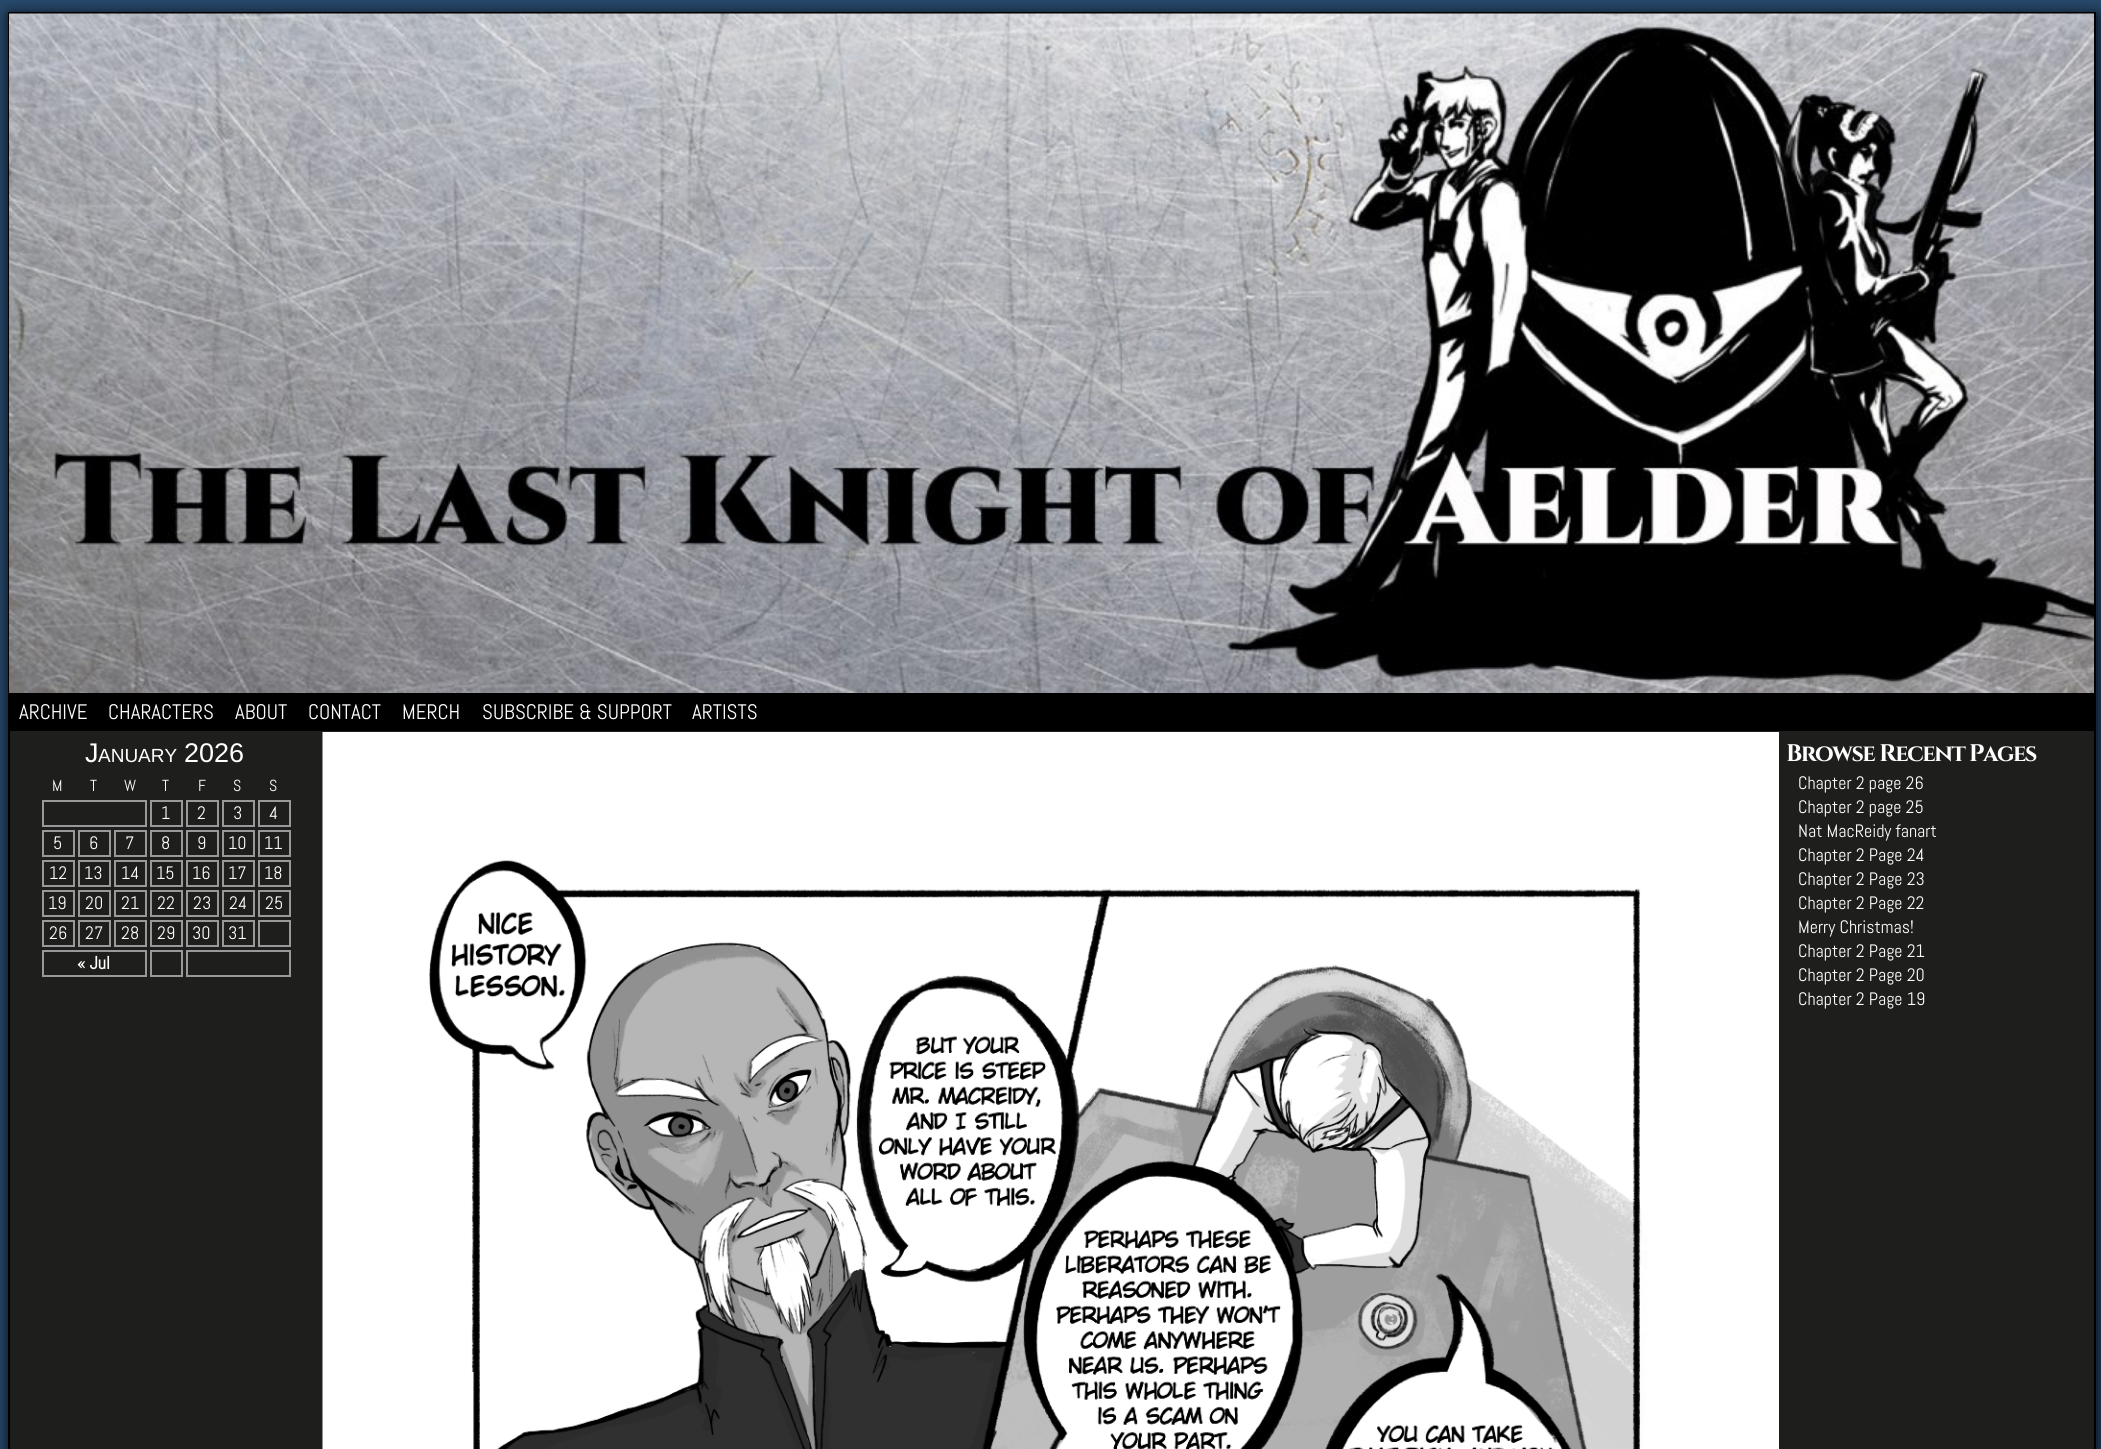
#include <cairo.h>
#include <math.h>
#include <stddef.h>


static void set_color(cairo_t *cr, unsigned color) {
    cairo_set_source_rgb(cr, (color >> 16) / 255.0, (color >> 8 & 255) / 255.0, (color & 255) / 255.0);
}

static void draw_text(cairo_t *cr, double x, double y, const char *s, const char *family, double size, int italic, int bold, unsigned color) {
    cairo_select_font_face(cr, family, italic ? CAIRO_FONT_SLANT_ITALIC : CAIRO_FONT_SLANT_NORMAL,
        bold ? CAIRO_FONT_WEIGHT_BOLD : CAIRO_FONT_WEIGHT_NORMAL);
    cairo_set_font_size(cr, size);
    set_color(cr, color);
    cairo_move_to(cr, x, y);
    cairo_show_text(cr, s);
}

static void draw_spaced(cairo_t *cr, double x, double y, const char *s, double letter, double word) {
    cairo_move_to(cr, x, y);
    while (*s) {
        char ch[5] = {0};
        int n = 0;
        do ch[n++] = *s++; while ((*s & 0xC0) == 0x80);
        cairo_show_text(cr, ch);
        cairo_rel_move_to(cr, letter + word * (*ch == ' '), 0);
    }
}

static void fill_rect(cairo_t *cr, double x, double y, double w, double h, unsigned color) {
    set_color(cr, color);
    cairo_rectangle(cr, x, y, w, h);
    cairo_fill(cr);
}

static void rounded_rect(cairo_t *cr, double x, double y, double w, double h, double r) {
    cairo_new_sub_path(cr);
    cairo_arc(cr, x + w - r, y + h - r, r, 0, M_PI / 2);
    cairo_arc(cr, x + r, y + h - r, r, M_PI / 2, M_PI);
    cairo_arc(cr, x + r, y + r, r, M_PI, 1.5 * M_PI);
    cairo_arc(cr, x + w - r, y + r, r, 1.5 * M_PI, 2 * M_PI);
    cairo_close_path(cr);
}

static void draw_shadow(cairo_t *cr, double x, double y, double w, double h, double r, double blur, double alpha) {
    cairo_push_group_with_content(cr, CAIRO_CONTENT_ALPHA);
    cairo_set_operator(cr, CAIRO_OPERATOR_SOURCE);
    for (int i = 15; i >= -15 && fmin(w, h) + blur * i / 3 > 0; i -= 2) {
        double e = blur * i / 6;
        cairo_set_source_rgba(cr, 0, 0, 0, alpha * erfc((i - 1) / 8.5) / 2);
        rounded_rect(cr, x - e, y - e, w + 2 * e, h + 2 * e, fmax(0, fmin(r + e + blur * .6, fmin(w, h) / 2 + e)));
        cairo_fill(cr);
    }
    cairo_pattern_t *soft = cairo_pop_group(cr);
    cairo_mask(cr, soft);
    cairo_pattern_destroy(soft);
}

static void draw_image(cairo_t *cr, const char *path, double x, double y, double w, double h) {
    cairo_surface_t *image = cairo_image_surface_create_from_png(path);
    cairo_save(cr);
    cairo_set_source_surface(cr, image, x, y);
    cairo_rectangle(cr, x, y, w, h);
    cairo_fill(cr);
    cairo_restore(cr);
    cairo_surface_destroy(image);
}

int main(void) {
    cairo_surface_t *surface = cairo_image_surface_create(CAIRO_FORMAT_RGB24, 2101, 1449);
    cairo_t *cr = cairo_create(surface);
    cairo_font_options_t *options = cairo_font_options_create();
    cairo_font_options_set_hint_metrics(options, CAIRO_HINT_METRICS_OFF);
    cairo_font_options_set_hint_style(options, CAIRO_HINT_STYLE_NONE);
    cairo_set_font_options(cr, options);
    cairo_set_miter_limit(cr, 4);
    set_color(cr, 0x27496B);
    cairo_paint(cr);
    set_color(cr, 0x000000);
    draw_shadow(cr, 9, 15, 2088, 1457, 0, 7.5, 1);
    fill_rect(cr, 10, 731, 2084, 718, 0x1E1F1D);
    cairo_rectangle(cr, 9, 13, 2086, 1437);
    set_color(cr, 0x000000);
    cairo_stroke(cr);
    draw_image(cr, "assets/img1.png", 9, 13, 2085, 680);
    fill_rect(cr, 10, 693, 2084, 38, 0x000000);
    draw_text(cr, 19, 719, "ARCHIVE", "Abel", 21, 0, 0, 0xFFFFFF);
    draw_text(cr, 108, 719, "CHARACTERS", "Abel", 21, 0, 0, 0xFFFFFF);
    draw_text(cr, 235, 719, "ABOUT", "Abel", 21, 0, 0, 0xFFFFFF);
    draw_text(cr, 308, 719, "CONTACT", "Abel", 21, 0, 0, 0xFFFFFF);
    draw_text(cr, 402, 719, "MERCH", "Abel", 21, 0, 0, 0xFFFFFF);
    draw_text(cr, 482, 719, "SUBSCRIBE & SUPPORT", "Abel", 21, 0, 0, 0xFFFFFF);
    draw_text(cr, 692, 719, "ARTISTS", "Abel", 21, 0, 0, 0xFFFFFF);
    draw_text(cr, 85, 762, "J", "Liberation Sans", 27, 0, 0, 0xFFFFFF);
    draw_text(cr, 98, 762, "ANUARY", "Liberation Sans", 19, 0, 0, 0xFFFFFF);
    draw_text(cr, 184, 762, "2026", "Liberation Sans", 27, 0, 0, 0xFFFFFF);
    draw_text(cr, 52, 791, "M", "Abel", 16, 0, 0, 0xFFFFFF);
    draw_text(cr, 90, 791, "T", "Abel", 16, 0, 0, 0xFFFFFF);
    draw_text(cr, 124, 791, "W", "Abel", 16, 0, 0, 0xFFFFFF);
    draw_text(cr, 162, 791, "T", "Abel", 16, 0, 0, 0xFFFFFF);
    draw_text(cr, 198, 791, "F", "Abel", 16, 0, 0, 0xFFFFFF);
    draw_text(cr, 233, 791, "S", "Abel", 16, 0, 0, 0xFFFFFF);
    draw_text(cr, 269, 791, "S", "Abel", 16, 0, 0, 0xFFFFFF);
    cairo_rectangle(cr, 43, 801, 103, 25);
    set_color(cr, 0x999999);
    cairo_stroke(cr);
    cairo_rectangle(cr, 151, 801, 31, 25);
    cairo_stroke(cr);
    draw_text(cr, 161, 819, "1", "Abel", 18, 0, 0, 0xFFFFFF);
    cairo_rectangle(cr, 187, 801, 31, 25);
    set_color(cr, 0x999999);
    cairo_stroke(cr);
    draw_text(cr, 197, 819, "2", "Abel", 18, 0, 0, 0xFFFFFF);
    cairo_rectangle(cr, 223, 801, 31, 25);
    set_color(cr, 0x999999);
    cairo_stroke(cr);
    draw_text(cr, 233, 819, "3", "Abel", 18, 0, 0, 0xFFFFFF);
    cairo_rectangle(cr, 259, 801, 31, 25);
    set_color(cr, 0x999999);
    cairo_stroke(cr);
    draw_text(cr, 269, 819, "4", "Abel", 18, 0, 0, 0xFFFFFF);
    cairo_rectangle(cr, 43, 831, 31, 25);
    set_color(cr, 0x999999);
    cairo_stroke(cr);
    draw_text(cr, 53, 849, "5", "Abel", 18, 0, 0, 0xFFFFFF);
    cairo_rectangle(cr, 79, 831, 31, 25);
    set_color(cr, 0x999999);
    cairo_stroke(cr);
    draw_text(cr, 89, 849, "6", "Abel", 18, 0, 0, 0xFFFFFF);
    cairo_rectangle(cr, 115, 831, 31, 25);
    set_color(cr, 0x999999);
    cairo_stroke(cr);
    draw_text(cr, 125, 849, "7", "Abel", 18, 0, 0, 0xFFFFFF);
    cairo_rectangle(cr, 151, 831, 31, 25);
    set_color(cr, 0x999999);
    cairo_stroke(cr);
    draw_text(cr, 161, 849, "8", "Abel", 18, 0, 0, 0xFFFFFF);
    cairo_rectangle(cr, 187, 831, 31, 25);
    set_color(cr, 0x999999);
    cairo_stroke(cr);
    draw_text(cr, 197, 849, "9", "Abel", 18, 0, 0, 0xFFFFFF);
    cairo_rectangle(cr, 223, 831, 31, 25);
    set_color(cr, 0x999999);
    cairo_stroke(cr);
    draw_text(cr, 228, 849, "10", "Abel", 18, 0, 0, 0xFFFFFF);
    cairo_rectangle(cr, 259, 831, 31, 25);
    set_color(cr, 0x999999);
    cairo_stroke(cr);
    draw_text(cr, 264, 849, "11", "Abel", 18, 0, 0, 0xFFFFFF);
    cairo_rectangle(cr, 43, 861, 31, 25);
    set_color(cr, 0x999999);
    cairo_stroke(cr);
    draw_text(cr, 49, 879, "12", "Abel", 18, 0, 0, 0xFFFFFF);
    cairo_rectangle(cr, 79, 861, 31, 25);
    set_color(cr, 0x999999);
    cairo_stroke(cr);
    draw_text(cr, 84, 879, "13", "Abel", 18, 0, 0, 0xFFFFFF);
    cairo_rectangle(cr, 115, 861, 31, 25);
    set_color(cr, 0x999999);
    cairo_stroke(cr);
    draw_text(cr, 121, 879, "14", "Abel", 18, 0, 0, 0xFFFFFF);
    cairo_rectangle(cr, 151, 861, 31, 25);
    set_color(cr, 0x999999);
    cairo_stroke(cr);
    draw_text(cr, 156, 879, "15", "Abel", 18, 0, 0, 0xFFFFFF);
    cairo_rectangle(cr, 187, 861, 31, 25);
    set_color(cr, 0x999999);
    cairo_stroke(cr);
    draw_text(cr, 192, 879, "16", "Abel", 18, 0, 0, 0xFFFFFF);
    cairo_rectangle(cr, 223, 861, 31, 25);
    set_color(cr, 0x999999);
    cairo_stroke(cr);
    draw_text(cr, 228, 879, "17", "Abel", 18, 0, 0, 0xFFFFFF);
    cairo_rectangle(cr, 259, 861, 31, 25);
    set_color(cr, 0x999999);
    cairo_stroke(cr);
    draw_text(cr, 264, 879, "18", "Abel", 18, 0, 0, 0xFFFFFF);
    cairo_rectangle(cr, 43, 891, 31, 25);
    set_color(cr, 0x999999);
    cairo_stroke(cr);
    draw_text(cr, 48, 909, "19", "Abel", 18, 0, 0, 0xFFFFFF);
    cairo_rectangle(cr, 79, 891, 31, 25);
    set_color(cr, 0x999999);
    cairo_stroke(cr);
    draw_text(cr, 85, 909, "20", "Abel", 18, 0, 0, 0xFFFFFF);
    cairo_rectangle(cr, 115, 891, 31, 25);
    set_color(cr, 0x999999);
    cairo_stroke(cr);
    draw_text(cr, 121, 909, "21", "Abel", 18, 0, 0, 0xFFFFFF);
    cairo_rectangle(cr, 151, 891, 31, 25);
    set_color(cr, 0x999999);
    cairo_stroke(cr);
    draw_text(cr, 157, 909, "22", "Abel", 18, 0, 0, 0xFFFFFF);
    cairo_rectangle(cr, 187, 891, 31, 25);
    set_color(cr, 0x999999);
    cairo_stroke(cr);
    draw_text(cr, 193, 909, "23", "Abel", 18, 0, 0, 0xFFFFFF);
    cairo_rectangle(cr, 223, 891, 31, 25);
    set_color(cr, 0x999999);
    cairo_stroke(cr);
    draw_text(cr, 229, 909, "24", "Abel", 18, 0, 0, 0xFFFFFF);
    cairo_rectangle(cr, 259, 891, 31, 25);
    set_color(cr, 0x999999);
    cairo_stroke(cr);
    draw_text(cr, 265, 909, "25", "Abel", 18, 0, 0, 0xFFFFFF);
    cairo_rectangle(cr, 43, 921, 31, 25);
    set_color(cr, 0x999999);
    cairo_stroke(cr);
    draw_text(cr, 49, 939, "26", "Abel", 18, 0, 0, 0xFFFFFF);
    cairo_rectangle(cr, 79, 921, 31, 25);
    set_color(cr, 0x999999);
    cairo_stroke(cr);
    draw_text(cr, 85, 939, "27", "Abel", 18, 0, 0, 0xFFFFFF);
    cairo_rectangle(cr, 115, 921, 31, 25);
    set_color(cr, 0x999999);
    cairo_stroke(cr);
    draw_text(cr, 121, 939, "28", "Abel", 18, 0, 0, 0xFFFFFF);
    cairo_rectangle(cr, 151, 921, 31, 25);
    set_color(cr, 0x999999);
    cairo_stroke(cr);
    draw_text(cr, 157, 939, "29", "Abel", 18, 0, 0, 0xFFFFFF);
    cairo_rectangle(cr, 187, 921, 31, 25);
    set_color(cr, 0x999999);
    cairo_stroke(cr);
    draw_text(cr, 192, 939, "30", "Abel", 18, 0, 0, 0xFFFFFF);
    cairo_rectangle(cr, 223, 921, 31, 25);
    set_color(cr, 0x999999);
    cairo_stroke(cr);
    draw_text(cr, 228, 939, "31", "Abel", 18, 0, 0, 0xFFFFFF);
    cairo_rectangle(cr, 259, 921, 31, 25);
    set_color(cr, 0x999999);
    cairo_stroke(cr);
    cairo_rectangle(cr, 43, 951, 103, 25);
    cairo_stroke(cr);
    draw_text(cr, 77, 969, "« Jul", "Abel", 18, 0, 1, 0xFFFFFF);
    cairo_rectangle(cr, 151, 951, 31, 25);
    set_color(cr, 0x999999);
    cairo_stroke(cr);
    cairo_rectangle(cr, 187, 951, 103, 25);
    cairo_stroke(cr);
    draw_image(cr, "assets/img2.png", 322, 732, 1457, 717);
    cairo_select_font_face(cr, "Cinzel", CAIRO_FONT_SLANT_NORMAL, CAIRO_FONT_WEIGHT_BOLD);
    cairo_set_font_size(cr, 24);
    set_color(cr, 0xFFFFFF);
    draw_spaced(cr, 1786, 761, "Browse Recent Pages", -1.5, 0);
    draw_text(cr, 1798, 789, "Chapter 2 page 26", "Abel", 18, 0, 0, 0xFFFFFF);
    draw_text(cr, 1798, 813, "Chapter 2 page 25", "Abel", 18, 0, 0, 0xFFFFFF);
    draw_text(cr, 1798, 837, "Nat MacReidy fanart", "Abel", 18, 0, 0, 0xFFFFFF);
    draw_text(cr, 1798, 861, "Chapter 2 Page 24", "Abel", 18, 0, 0, 0xFFFFFF);
    draw_text(cr, 1798, 885, "Chapter 2 Page 23", "Abel", 18, 0, 0, 0xFFFFFF);
    draw_text(cr, 1798, 909, "Chapter 2 Page 22", "Abel", 18, 0, 0, 0xFFFFFF);
    draw_text(cr, 1798, 933, "Merry Christmas!", "Abel", 18, 0, 0, 0xFFFFFF);
    draw_text(cr, 1798, 957, "Chapter 2 Page 21", "Abel", 18, 0, 0, 0xFFFFFF);
    draw_text(cr, 1798, 981, "Chapter 2 Page 20", "Abel", 18, 0, 0, 0xFFFFFF);
    draw_text(cr, 1798, 1005, "Chapter 2 Page 19", "Abel", 18, 0, 0, 0xFFFFFF);
    cairo_surface_write_to_png(surface, "output.png");
    cairo_font_options_destroy(options);
    cairo_destroy(cr);
    cairo_surface_destroy(surface);
    return 0;
}
